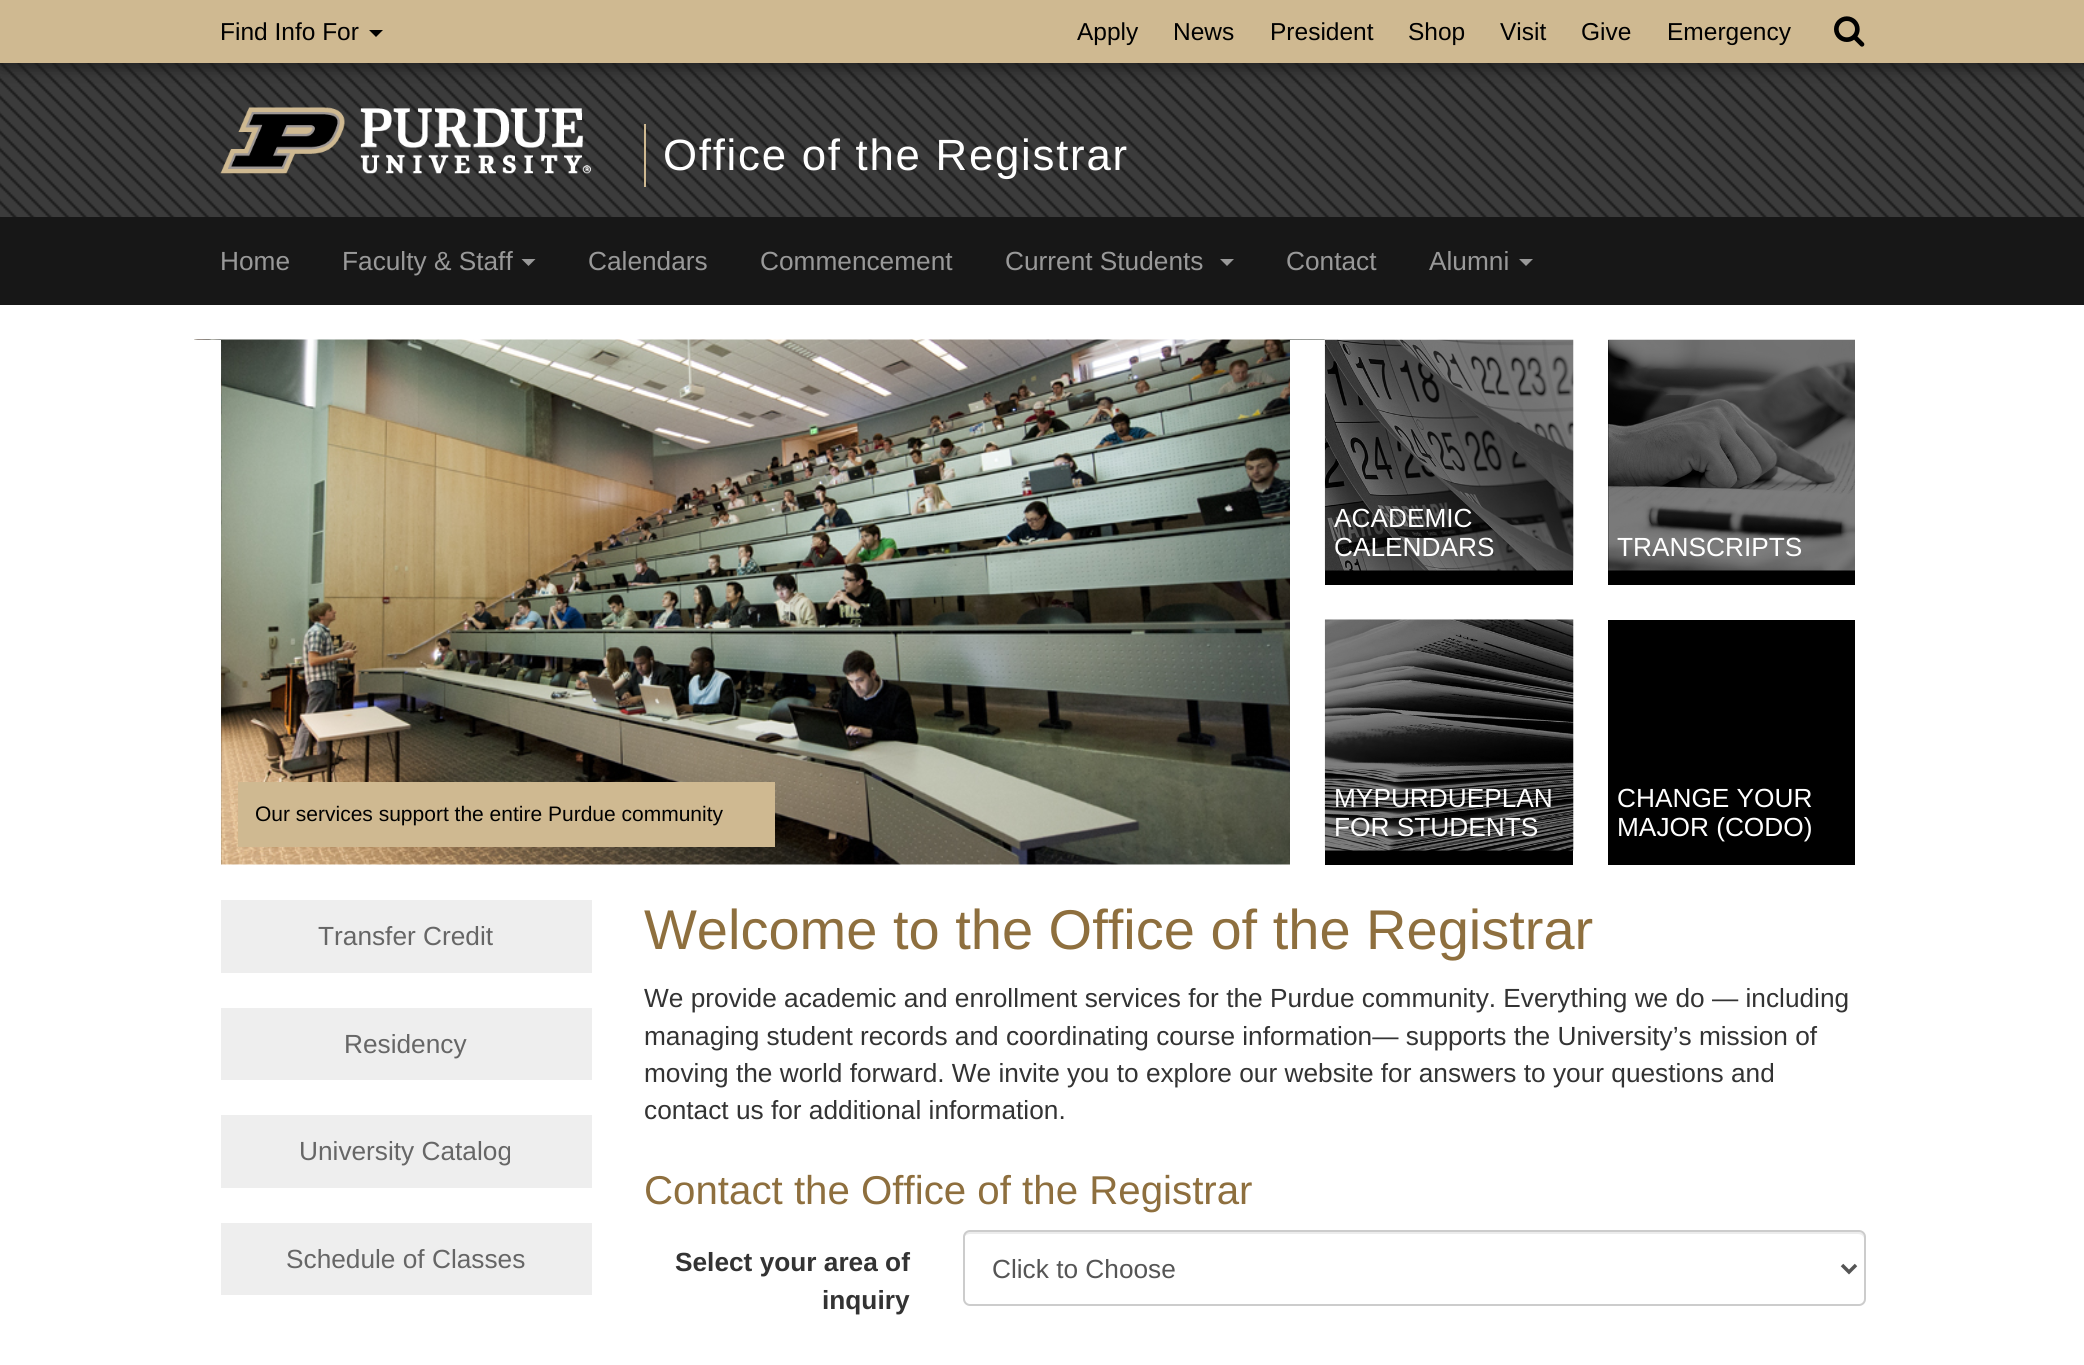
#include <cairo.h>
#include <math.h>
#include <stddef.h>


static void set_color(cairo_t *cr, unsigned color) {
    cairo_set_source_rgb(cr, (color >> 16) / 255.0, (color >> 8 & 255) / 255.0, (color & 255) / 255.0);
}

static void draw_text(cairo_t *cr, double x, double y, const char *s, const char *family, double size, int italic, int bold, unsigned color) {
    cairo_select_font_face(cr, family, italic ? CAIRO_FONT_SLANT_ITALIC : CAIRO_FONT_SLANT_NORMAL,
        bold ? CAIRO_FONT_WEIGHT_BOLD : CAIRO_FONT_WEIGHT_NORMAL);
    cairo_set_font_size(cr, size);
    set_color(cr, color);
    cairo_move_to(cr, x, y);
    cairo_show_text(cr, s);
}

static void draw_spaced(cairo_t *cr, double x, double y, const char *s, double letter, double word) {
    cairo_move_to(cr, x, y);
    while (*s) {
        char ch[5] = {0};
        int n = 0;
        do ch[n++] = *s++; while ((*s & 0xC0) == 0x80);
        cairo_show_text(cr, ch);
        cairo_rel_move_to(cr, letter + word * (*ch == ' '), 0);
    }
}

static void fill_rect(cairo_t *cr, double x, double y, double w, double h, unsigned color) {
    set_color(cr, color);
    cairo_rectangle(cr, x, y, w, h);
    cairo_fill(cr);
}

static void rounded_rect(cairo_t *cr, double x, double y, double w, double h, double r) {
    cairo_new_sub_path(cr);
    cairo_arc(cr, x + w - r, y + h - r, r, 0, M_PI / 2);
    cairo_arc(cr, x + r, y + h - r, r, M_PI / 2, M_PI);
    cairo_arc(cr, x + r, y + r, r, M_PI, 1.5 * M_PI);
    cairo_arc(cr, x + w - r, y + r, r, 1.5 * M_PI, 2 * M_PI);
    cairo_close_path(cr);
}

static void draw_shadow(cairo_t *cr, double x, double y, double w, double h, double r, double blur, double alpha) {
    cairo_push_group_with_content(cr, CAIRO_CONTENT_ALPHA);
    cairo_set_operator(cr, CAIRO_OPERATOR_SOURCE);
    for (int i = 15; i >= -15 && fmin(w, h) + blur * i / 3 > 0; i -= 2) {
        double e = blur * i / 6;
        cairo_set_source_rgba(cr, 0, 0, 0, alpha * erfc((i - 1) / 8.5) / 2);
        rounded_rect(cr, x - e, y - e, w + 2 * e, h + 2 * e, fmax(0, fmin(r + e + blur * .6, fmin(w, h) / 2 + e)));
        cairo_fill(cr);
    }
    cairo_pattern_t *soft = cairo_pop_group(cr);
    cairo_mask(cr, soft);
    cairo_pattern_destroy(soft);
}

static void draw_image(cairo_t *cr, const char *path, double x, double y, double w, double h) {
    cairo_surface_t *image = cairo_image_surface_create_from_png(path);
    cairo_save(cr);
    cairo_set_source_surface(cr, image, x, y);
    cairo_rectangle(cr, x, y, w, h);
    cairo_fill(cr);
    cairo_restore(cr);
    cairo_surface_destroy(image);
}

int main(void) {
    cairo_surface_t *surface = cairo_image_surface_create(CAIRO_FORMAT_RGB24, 2084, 1365);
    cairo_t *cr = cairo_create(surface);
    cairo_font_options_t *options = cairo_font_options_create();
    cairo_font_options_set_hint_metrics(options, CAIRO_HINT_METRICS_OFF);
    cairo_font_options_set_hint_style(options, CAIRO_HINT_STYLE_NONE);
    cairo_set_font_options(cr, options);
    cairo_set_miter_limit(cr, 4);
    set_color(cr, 0xFFFFFF);
    cairo_paint(cr);
    draw_image(cr, "assets/img2.png", 0, 63, 2084, 154);
    set_color(cr, 0x1E1E1E);
    draw_shadow(cr, 0, 4, 2084, 63, 0, 9, 1);
    fill_rect(cr, 0, 0, 2084, 63, 0xCFB991);
    draw_text(cr, 220, 40, "Find Info For", "Liberation Sans", 24.5, 0, 0, 0x000000);
    cairo_new_path(cr);
    cairo_move_to(cr, 369, 30);
    cairo_line_to(cr, 383, 30);
    cairo_line_to(cr, 376, 37);
    cairo_close_path(cr);
    cairo_fill(cr);
    draw_text(cr, 1077, 40, "Apply", "Liberation Sans", 24.5, 0, 0, 0x000000);
    draw_text(cr, 1173, 40, "News", "Liberation Sans", 24.5, 0, 0, 0x000000);
    draw_text(cr, 1270, 40, "President", "Liberation Sans", 24.5, 0, 0, 0x000000);
    draw_text(cr, 1408, 40, "Shop", "Liberation Sans", 24.5, 0, 0, 0x000000);
    draw_text(cr, 1500, 40, "Visit", "Liberation Sans", 24.5, 0, 0, 0x000000);
    draw_text(cr, 1581, 40, "Give", "Liberation Sans", 24.5, 0, 0, 0x000000);
    draw_text(cr, 1667, 40, "Emergency", "Liberation Sans", 24.5, 0, 0, 0x000000);
    draw_image(cr, "assets/img1.png", 1834, 16, 31, 31);
    draw_image(cr, "assets/img3.png", 220, 107, 371, 67);
    fill_rect(cr, 644, 124, 2, 63, 0xCFB991);
    cairo_set_font_size(cr, 43.75);
    set_color(cr, 0xFFFFFF);
    draw_spaced(cr, 663, 170, "Office of the Registrar", 1.75, 0);
    fill_rect(cr, 0, 217, 2084, 88, 0x171717);
    draw_text(cr, 220, 270, "Home", "Liberation Sans", 26.25, 0, 0, 0x999999);
    draw_text(cr, 342, 270, "Faculty & Staff", "Liberation Sans", 26.25, 0, 0, 0x999999);
    cairo_new_path(cr);
    cairo_move_to(cr, 521.5, 259);
    cairo_line_to(cr, 535.5, 259);
    cairo_line_to(cr, 528.5, 266);
    cairo_close_path(cr);
    cairo_fill(cr);
    draw_text(cr, 588, 270, "Calendars", "Liberation Sans", 26.25, 0, 0, 0x999999);
    draw_text(cr, 760, 270, "Commencement", "Liberation Sans", 26.25, 0, 0, 0x999999);
    draw_text(cr, 1005, 270, "Current Students", "Liberation Sans", 26.25, 0, 0, 0x999999);
    cairo_new_path(cr);
    cairo_move_to(cr, 1220, 259);
    cairo_line_to(cr, 1234, 259);
    cairo_line_to(cr, 1227, 266);
    cairo_close_path(cr);
    cairo_fill(cr);
    draw_text(cr, 1286, 270, "Contact", "Liberation Sans", 26.25, 0, 0, 0x999999);
    draw_text(cr, 1429, 270, "Alumni", "Liberation Sans", 26.25, 0, 0, 0x999999);
    cairo_new_path(cr);
    cairo_move_to(cr, 1519, 259);
    cairo_line_to(cr, 1533, 259);
    cairo_line_to(cr, 1526, 266);
    cairo_close_path(cr);
    cairo_fill(cr);
    draw_image(cr, "assets/img4.png", 194, 339, 1131, 526);
    fill_rect(cr, 1290, 340, 35, 525, 0xFFFFFF);
    fill_rect(cr, 194, 340, 27, 525, 0xFFFFFF);
    fill_rect(cr, 238, 782, 537, 65, 0xCFB991);
    draw_text(cr, 255, 821, "Our services support the entire Purdue community", "Liberation Sans", 21, 0, 0, 0x000000);
    fill_rect(cr, 1325, 570, 248, 15, 0x000000);
    draw_image(cr, "assets/img5.png", 1324, 339, 250, 232);
    draw_text(cr, 1334, 527, "ACADEMIC", "Liberation Sans", 26.25, 0, 0, 0xFFFFFF);
    draw_text(cr, 1334, 556, "CALENDARS", "Liberation Sans", 26.25, 0, 0, 0xFFFFFF);
    fill_rect(cr, 1608, 340, 247, 245, 0x000000);
    draw_image(cr, "assets/img6.png", 1608, 339, 247, 232);
    draw_text(cr, 1617, 556, "TRANSCRIPTS", "Liberation Sans", 26.25, 0, 0, 0xFFFFFF);
    fill_rect(cr, 1325, 850, 248, 15, 0x000000);
    draw_image(cr, "assets/img7.png", 1324, 619, 250, 232);
    draw_text(cr, 1334, 807, "MYPURDUEPLAN", "Liberation Sans", 26.25, 0, 0, 0xFFFFFF);
    draw_text(cr, 1334, 836, "FOR STUDENTS", "Liberation Sans", 26.25, 0, 0, 0xFFFFFF);
    fill_rect(cr, 1608, 620, 247, 245, 0x000000);
    draw_text(cr, 1617, 807, "CHANGE YOUR", "Liberation Sans", 26.25, 0, 0, 0xFFFFFF);
    draw_text(cr, 1617, 836, "MAJOR (CODO)", "Liberation Sans", 26.25, 0, 0, 0xFFFFFF);
    fill_rect(cr, 221, 900, 371, 73, 0xEEEEEE);
    draw_text(cr, 318, 945, "Transfer Credit", "Liberation Sans", 26.25, 0, 0, 0x666666);
    fill_rect(cr, 221, 1008, 371, 72, 0xEEEEEE);
    draw_text(cr, 344, 1053, "Residency", "Liberation Sans", 26.25, 0, 0, 0x666666);
    fill_rect(cr, 221, 1115, 371, 73, 0xEEEEEE);
    draw_text(cr, 299, 1160, "University Catalog", "Liberation Sans", 26.25, 0, 0, 0x666666);
    fill_rect(cr, 221, 1223, 371, 72, 0xEEEEEE);
    draw_text(cr, 286, 1268, "Schedule of Classes", "Liberation Sans", 26.25, 0, 0, 0x666666);
    draw_text(cr, 644, 949, "Welcome to the Office of the Registrar", "Liberation Sans", 56, 0, 0, 0x8E6F3E);
    draw_text(cr, 644, 1007, "We provide academic and enrollment services for the Purdue community. Everything we do — including", "Liberation Sans", 26.25, 0, 0, 0x333333);
    draw_text(cr, 644, 1045, "managing student records and coordinating course information— supports the University’s mission of", "Liberation Sans", 26.25, 0, 0, 0x333333);
    draw_text(cr, 644, 1082, "moving the world forward. We invite you to explore our website for answers to your questions and", "Liberation Sans", 26.25, 0, 0, 0x333333);
    draw_text(cr, 644, 1119, "contact us for additional information.", "Liberation Sans", 26.25, 0, 0, 0x333333);
    draw_text(cr, 644, 1204, "Contact the Office of the Registrar", "Liberation Sans", 40.25, 0, 0, 0x8E6F3E);
    draw_text(cr, 675, 1271, "Select your area of", "Liberation Sans", 26.25, 0, 1, 0x333333);
    draw_text(cr, 822, 1309, "inquiry", "Liberation Sans", 26.25, 0, 1, 0x333333);
    set_color(cr, 0xECECEC);
    cairo_new_path(cr);
    cairo_move_to(cr, 970, 1234);
    cairo_line_to(cr, 1858, 1234);
    cairo_curve_to(cr, 1861, 1234, 1864, 1236, 1864, 1239);
    cairo_line_to(cr, 1864, 1237);
    cairo_curve_to(cr, 1864, 1234, 1862, 1232, 1859, 1232);
    cairo_line_to(cr, 969, 1232);
    cairo_curve_to(cr, 966, 1232, 964, 1234, 964, 1237);
    cairo_line_to(cr, 964, 1239);
    cairo_curve_to(cr, 964, 1236, 967, 1234, 970, 1234);
    cairo_close_path(cr);
    cairo_fill(cr);
    rounded_rect(cr, 964, 1231, 901, 74, 6);
    set_color(cr, 0xCCCCCC);
    cairo_stroke(cr);
    cairo_new_path(cr);
    cairo_move_to(cr, 1842, 1265);
    cairo_line_to(cr, 1849, 1272);
    cairo_line_to(cr, 1856, 1265);
    set_color(cr, 0x555555);
    cairo_set_line_width(cr, 3.5);
    cairo_stroke(cr);
    draw_text(cr, 992, 1278, "Click to Choose", "Liberation Sans", 26.25, 0, 0, 0x555555);
    cairo_surface_write_to_png(surface, "output.png");
    cairo_font_options_destroy(options);
    cairo_destroy(cr);
    cairo_surface_destroy(surface);
    return 0;
}
